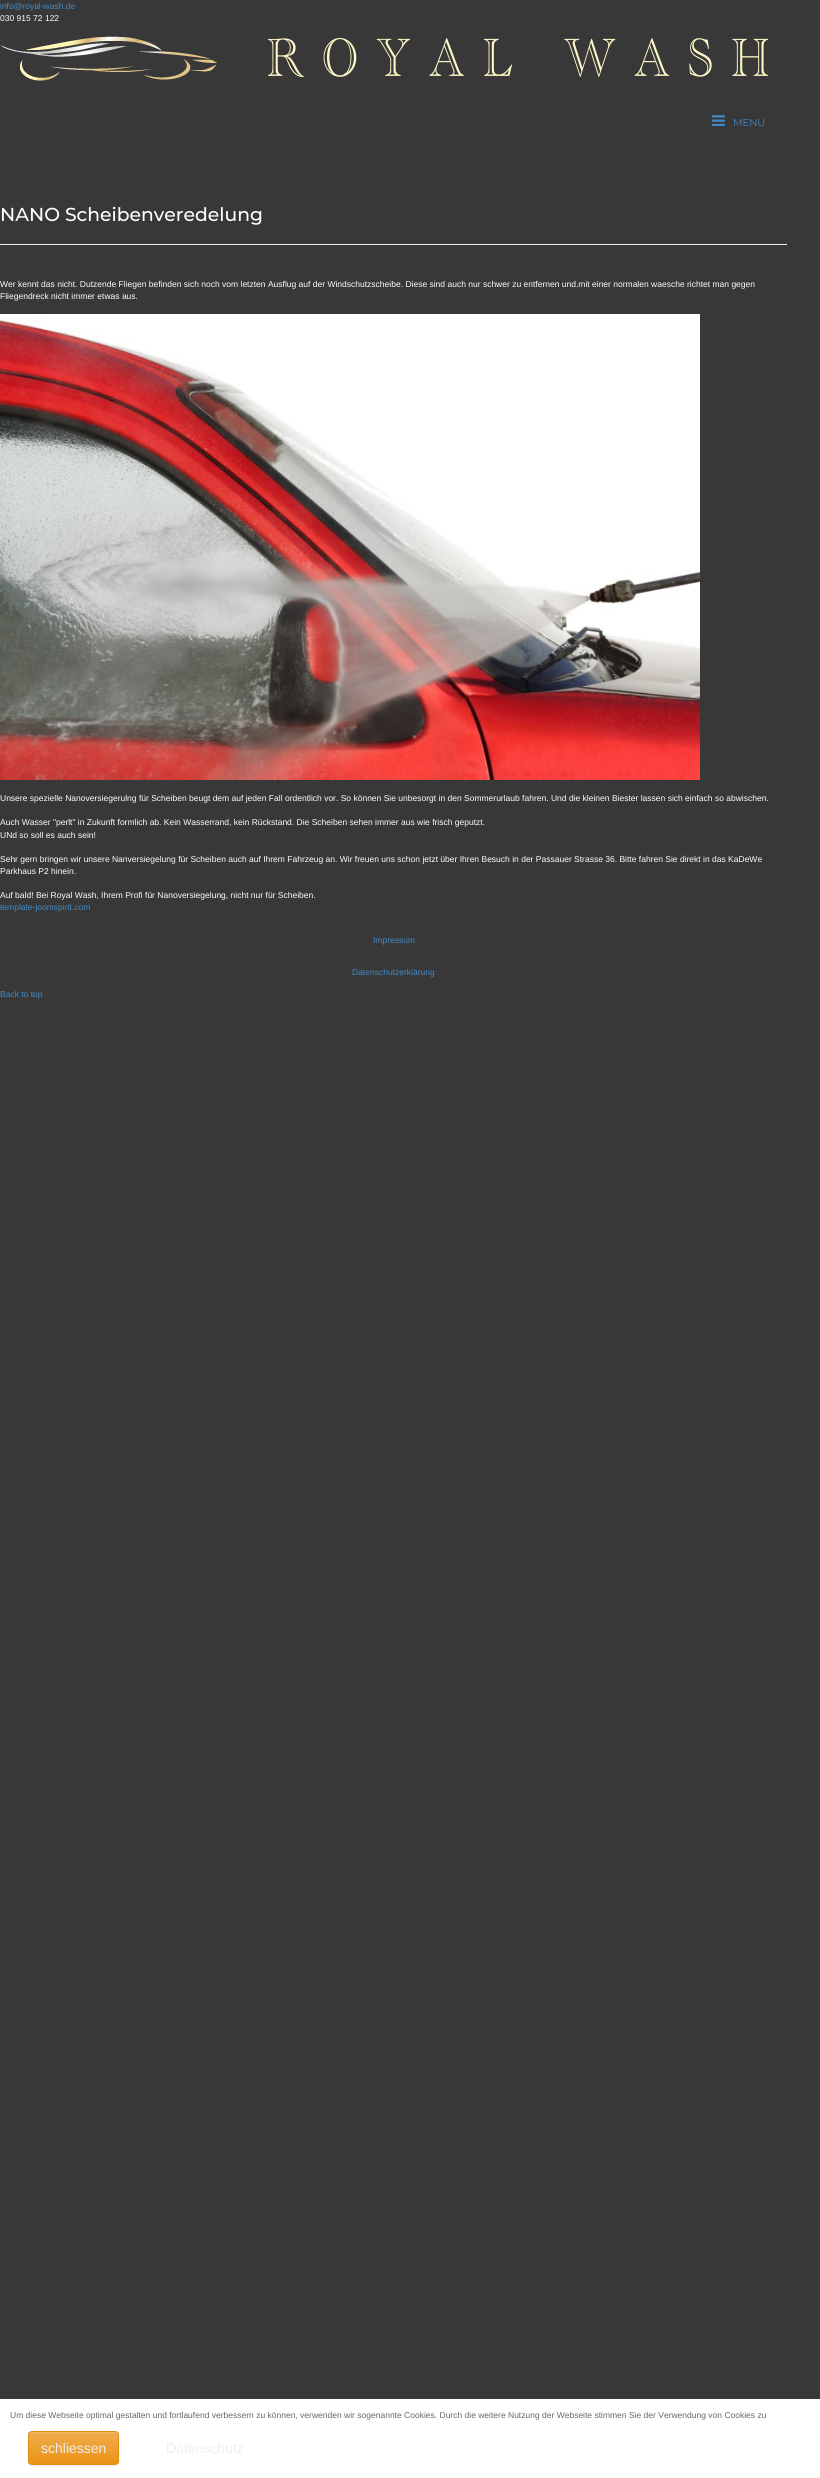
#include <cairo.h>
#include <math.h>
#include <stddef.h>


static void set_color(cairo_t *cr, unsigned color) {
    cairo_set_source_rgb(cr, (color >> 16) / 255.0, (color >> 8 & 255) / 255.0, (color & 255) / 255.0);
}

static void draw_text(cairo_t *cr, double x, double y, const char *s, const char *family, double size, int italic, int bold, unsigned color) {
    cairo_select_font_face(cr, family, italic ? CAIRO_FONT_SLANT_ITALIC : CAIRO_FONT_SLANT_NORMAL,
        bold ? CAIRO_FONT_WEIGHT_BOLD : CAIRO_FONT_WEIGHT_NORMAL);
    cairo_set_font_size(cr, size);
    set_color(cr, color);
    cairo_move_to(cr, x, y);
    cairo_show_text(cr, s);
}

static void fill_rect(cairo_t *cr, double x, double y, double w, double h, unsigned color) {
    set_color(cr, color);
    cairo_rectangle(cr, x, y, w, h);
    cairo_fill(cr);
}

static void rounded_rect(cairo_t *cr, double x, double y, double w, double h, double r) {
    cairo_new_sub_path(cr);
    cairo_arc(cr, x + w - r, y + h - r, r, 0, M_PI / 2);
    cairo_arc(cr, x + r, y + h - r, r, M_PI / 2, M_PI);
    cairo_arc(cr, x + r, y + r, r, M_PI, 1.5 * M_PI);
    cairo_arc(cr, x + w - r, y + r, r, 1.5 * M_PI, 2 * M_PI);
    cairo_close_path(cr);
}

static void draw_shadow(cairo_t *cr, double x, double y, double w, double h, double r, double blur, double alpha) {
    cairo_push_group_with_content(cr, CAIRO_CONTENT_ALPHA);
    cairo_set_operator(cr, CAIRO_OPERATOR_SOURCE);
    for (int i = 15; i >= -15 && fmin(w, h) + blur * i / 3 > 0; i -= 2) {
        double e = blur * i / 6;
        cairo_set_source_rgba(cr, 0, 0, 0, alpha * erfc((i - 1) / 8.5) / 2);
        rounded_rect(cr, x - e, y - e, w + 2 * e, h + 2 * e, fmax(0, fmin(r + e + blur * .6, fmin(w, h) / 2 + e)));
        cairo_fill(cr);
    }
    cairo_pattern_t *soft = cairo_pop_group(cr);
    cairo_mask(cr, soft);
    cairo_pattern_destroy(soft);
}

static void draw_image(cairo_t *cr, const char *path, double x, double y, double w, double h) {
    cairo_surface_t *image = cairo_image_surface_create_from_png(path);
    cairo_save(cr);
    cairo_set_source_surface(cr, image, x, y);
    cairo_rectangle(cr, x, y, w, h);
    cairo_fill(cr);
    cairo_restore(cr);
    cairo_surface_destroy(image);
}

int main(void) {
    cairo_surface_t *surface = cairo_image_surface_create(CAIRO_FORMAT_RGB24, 820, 2478);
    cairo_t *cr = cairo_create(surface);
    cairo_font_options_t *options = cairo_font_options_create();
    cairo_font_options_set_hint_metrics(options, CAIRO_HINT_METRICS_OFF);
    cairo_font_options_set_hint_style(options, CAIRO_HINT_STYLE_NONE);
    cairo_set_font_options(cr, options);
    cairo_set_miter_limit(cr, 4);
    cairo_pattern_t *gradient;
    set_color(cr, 0x383838);
    cairo_paint(cr);
    draw_text(cr, 0, 9, "info@royal-wash.de", "Liberation Sans", 8.5, 0, 0, 0x428BCA);
    draw_text(cr, 0, 21, "030 915 72 122", "Liberation Sans", 8.5, 0, 0, 0xFFFFFF);
    draw_image(cr, "assets/img1.png", 0, 36, 768, 45);
    draw_image(cr, "assets/img2.png", 712, 115, 13, 11);
    draw_text(cr, 733, 126, "MENU", "Montserrat", 10, 0, 0, 0x428BCA);
    fill_rect(cr, 0, 244, 787, 1, 0xEEEEEE);
    draw_text(cr, 0, 221, "NANO Scheibenveredelung", "Montserrat Medium", 18.75, 0, 0, 0xFFFFFF);
    draw_text(cr, 0, 287, "Wer kennt das nicht. Dutzende Fliegen befinden sich noch vom letzten Ausflug auf der Windschutzscheibe. Diese sind auch nur schwer zu entfernen und.mit einer normalen waesche richtet man gegen", "Liberation Sans", 8.5, 0, 0, 0xFFFFFF);
    draw_text(cr, 0, 299, "Fliegendreck nicht immer etwas aus.", "Liberation Sans", 8.5, 0, 0, 0xFFFFFF);
    draw_image(cr, "assets/img3.png", 0, 314, 700, 466);
    draw_text(cr, 0, 801, "Unsere spezielle Nanoversiegerulng für Scheiben beugt dem auf jeden Fall ordentlich vor. So können Sie unbesorgt in den Sommerurlaub fahren. Und die kleinen Biester lassen sich einfach so abwischen.", "Liberation Sans", 8.5, 0, 0, 0xFFFFFF);
    draw_text(cr, 0, 825, "Auch Wasser \"perlt\" in Zukunft formlich ab. Kein Wasserrand, kein Rückstand. Die Scheiben sehen immer aus wie frisch geputzt.", "Liberation Sans", 8.5, 0, 0, 0xFFFFFF);
    draw_text(cr, 0, 838, "UNd so soll es auch sein!", "Liberation Sans", 8.5, 0, 0, 0xFFFFFF);
    draw_text(cr, 0, 862, "Sehr gern bringen wir unsere Nanversiegelung für Scheiben auch auf Ihrem Fahrzeug an. Wir freuen uns schon jetzt über Ihren Besuch in der Passauer Strasse 36. Bitte fahren Sie direkt in das KaDeWe", "Liberation Sans", 8.5, 0, 0, 0xFFFFFF);
    draw_text(cr, 0, 874, "Parkhaus P2 hinein.", "Liberation Sans", 8.5, 0, 0, 0xFFFFFF);
    draw_text(cr, 0, 898, "Auf bald! Bei Royal Wash, Ihrem Profi für Nanoversiegelung, nicht nur für Scheiben.", "Liberation Sans", 8.5, 0, 0, 0xFFFFFF);
    draw_text(cr, 0, 910, "template-joomspirit.com", "Liberation Sans", 8.5, 0, 0, 0x428BCA);
    draw_text(cr, 373, 943, "Impressum", "Liberation Sans", 8.5, 0, 0, 0x428BCA);
    draw_text(cr, 352, 975, "Datenschutzerklärung", "Liberation Sans", 8.5, 0, 0, 0x428BCA);
    draw_text(cr, 0, 997, "Back to top", "Liberation Sans", 8.5, 0, 0, 0x428BCA);
    fill_rect(cr, 0, 2399, 820, 79, 0xFFFFFF);
    draw_text(cr, 10, 2418, "Um diese Webseite optimal gestalten und fortlaufend verbessern zu können, verwenden wir sogenannte Cookies. Durch die weitere Nutzung der Webseite stimmen Sie der Verwendung von Cookies zu", "Liberation Sans", 8.5, 0, 0, 0x666666);
    set_color(cr, 0x000000);
    draw_shadow(cr, 28, 2432, 91, 34, 4, 0.5, 0.07);
    cairo_save(cr);
    rounded_rect(cr, 28, 2431, 91, 34, 4);
    cairo_clip(cr);
    gradient = cairo_pattern_create_linear(74, 2432, 74, 2464);
    cairo_pattern_add_color_stop_rgba(gradient, 0, 0.941, 0.678, 0.306, 1);
    cairo_pattern_add_color_stop_rgba(gradient, 1, 0.922, 0.576, 0.086, 1);
    cairo_set_source(cr, gradient);
    cairo_pattern_destroy(gradient);
    cairo_rectangle(cr, 28, 2432, 91, 32);
    cairo_fill(cr);
    cairo_restore(cr);
    set_color(cr, 0xF2B968);
    cairo_new_path(cr);
    cairo_move_to(cr, 32, 2433);
    cairo_line_to(cr, 115, 2433);
    cairo_curve_to(cr, 117, 2433, 118, 2434, 118, 2436);
    cairo_curve_to(cr, 118, 2428, 105, 2432, 101, 2432);
    cairo_line_to(cr, 46, 2432);
    cairo_curve_to(cr, 42, 2432, 29, 2428, 29, 2436);
    cairo_curve_to(cr, 29, 2434, 30, 2433, 32, 2433);
    cairo_close_path(cr);
    cairo_fill(cr);
    rounded_rect(cr, 28.5, 2431.5, 90, 33, 3.5);
    set_color(cr, 0xE38D13);
    cairo_set_line_width(cr, 1);
    cairo_stroke(cr);
    draw_text(cr, 41, 2453, "schliessen", "Liberation Sans", 14, 0, 0, 0xEEEEEE);
    draw_text(cr, 166, 2453, "Datenschutz", "Liberation Sans", 14, 0, 0, 0xEEEEEE);
    cairo_surface_write_to_png(surface, "output.png");
    cairo_font_options_destroy(options);
    cairo_destroy(cr);
    cairo_surface_destroy(surface);
    return 0;
}
